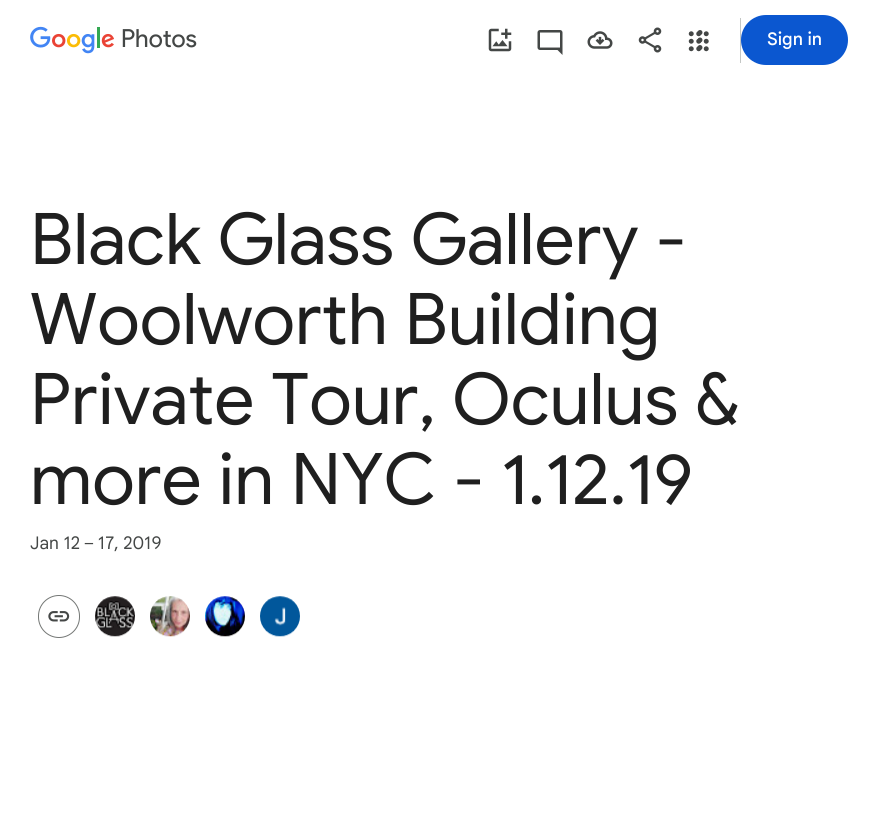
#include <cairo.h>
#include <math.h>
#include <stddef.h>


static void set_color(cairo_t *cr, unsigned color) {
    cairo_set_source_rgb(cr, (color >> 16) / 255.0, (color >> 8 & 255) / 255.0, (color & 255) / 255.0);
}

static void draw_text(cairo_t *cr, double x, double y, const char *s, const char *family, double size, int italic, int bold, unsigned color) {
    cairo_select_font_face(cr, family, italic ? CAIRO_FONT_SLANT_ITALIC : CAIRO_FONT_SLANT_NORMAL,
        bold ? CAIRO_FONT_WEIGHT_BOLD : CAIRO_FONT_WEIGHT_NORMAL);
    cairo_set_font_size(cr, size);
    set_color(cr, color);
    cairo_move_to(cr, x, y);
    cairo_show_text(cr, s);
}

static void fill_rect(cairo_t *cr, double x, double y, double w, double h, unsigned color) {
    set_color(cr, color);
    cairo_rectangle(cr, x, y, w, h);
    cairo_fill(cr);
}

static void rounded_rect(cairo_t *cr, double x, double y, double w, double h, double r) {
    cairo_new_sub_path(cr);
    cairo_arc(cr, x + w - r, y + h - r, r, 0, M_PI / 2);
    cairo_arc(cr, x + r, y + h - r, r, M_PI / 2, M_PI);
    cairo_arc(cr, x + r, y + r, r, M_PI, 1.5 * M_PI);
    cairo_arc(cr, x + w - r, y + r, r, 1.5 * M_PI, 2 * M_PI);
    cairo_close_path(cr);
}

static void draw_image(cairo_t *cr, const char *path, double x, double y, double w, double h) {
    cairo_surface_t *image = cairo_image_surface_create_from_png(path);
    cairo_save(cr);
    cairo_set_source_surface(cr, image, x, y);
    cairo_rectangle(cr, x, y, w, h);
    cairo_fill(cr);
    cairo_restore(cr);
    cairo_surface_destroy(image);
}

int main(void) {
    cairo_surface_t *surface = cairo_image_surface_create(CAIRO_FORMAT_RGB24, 892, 832);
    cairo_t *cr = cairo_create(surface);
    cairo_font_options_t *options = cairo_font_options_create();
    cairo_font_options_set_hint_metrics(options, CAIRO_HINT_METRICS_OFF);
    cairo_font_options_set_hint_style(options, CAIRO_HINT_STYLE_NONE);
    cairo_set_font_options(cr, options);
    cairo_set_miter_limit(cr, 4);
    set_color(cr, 0xFFFFFF);
    cairo_paint(cr);
    draw_image(cr, "assets/img1.png", 30, 26, 84, 28);
    draw_text(cr, 121, 47, "Photos", "Product Sans", 25, 0, 0, 0x444746);
    draw_image(cr, "assets/img2.png", 488, 28, 24, 24);
    draw_image(cr, "assets/img3.png", 537, 30, 26, 25);
    draw_image(cr, "assets/img4.png", 587, 31, 26, 18);
    draw_image(cr, "assets/img5.png", 638, 27, 24, 26);
    draw_image(cr, "assets/img6.png", 697, 30, 6, 20);
    fill_rect(cr, 740, 18, 1, 45, 0xC4C7C5);
    draw_text(cr, 30, 264, "Black Glass Gallery -", "Google Sans", 71.25, 0, 0, 0x1F1F1F);
    draw_text(cr, 30, 344, "Woolworth Building", "Google Sans", 71.25, 0, 0, 0x1F1F1F);
    draw_text(cr, 30, 424, "Private Tour, Oculus &", "Google Sans", 71.25, 0, 0, 0x1F1F1F);
    draw_text(cr, 30, 504, "more in NYC - 1.12.19", "Google Sans", 71.25, 0, 0, 0x1F1F1F);
    draw_text(cr, 30, 549, "Jan 12 – 17, 2019", "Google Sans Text", 17.5, 0, 0, 0x444746);
    rounded_rect(cr, 38.5, 595.5, 41, 42, 20.5);
    set_color(cr, 0x747775);
    cairo_set_line_width(cr, 1);
    cairo_stroke(cr);
    draw_image(cr, "assets/img7.png", 48, 611, 22, 11);
    draw_image(cr, "assets/img8.png", 95, 596, 40, 41);
    draw_image(cr, "assets/img9.png", 150, 596, 40, 41);
    draw_image(cr, "assets/img10.png", 205, 596, 40, 41);
    draw_image(cr, "assets/img11.png", 260, 596, 40, 41);
    draw_image(cr, "assets/img12.png", 688, 31, 21, 21);
    set_color(cr, 0x0B57D0);
    rounded_rect(cr, 741, 15, 107, 50, 25);
    cairo_fill(cr);
    draw_text(cr, 767, 45, "Sign in", "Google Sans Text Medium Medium", 17.5, 0, 0, 0xFFFFFF);
    cairo_surface_write_to_png(surface, "output.png");
    cairo_font_options_destroy(options);
    cairo_destroy(cr);
    cairo_surface_destroy(surface);
    return 0;
}
